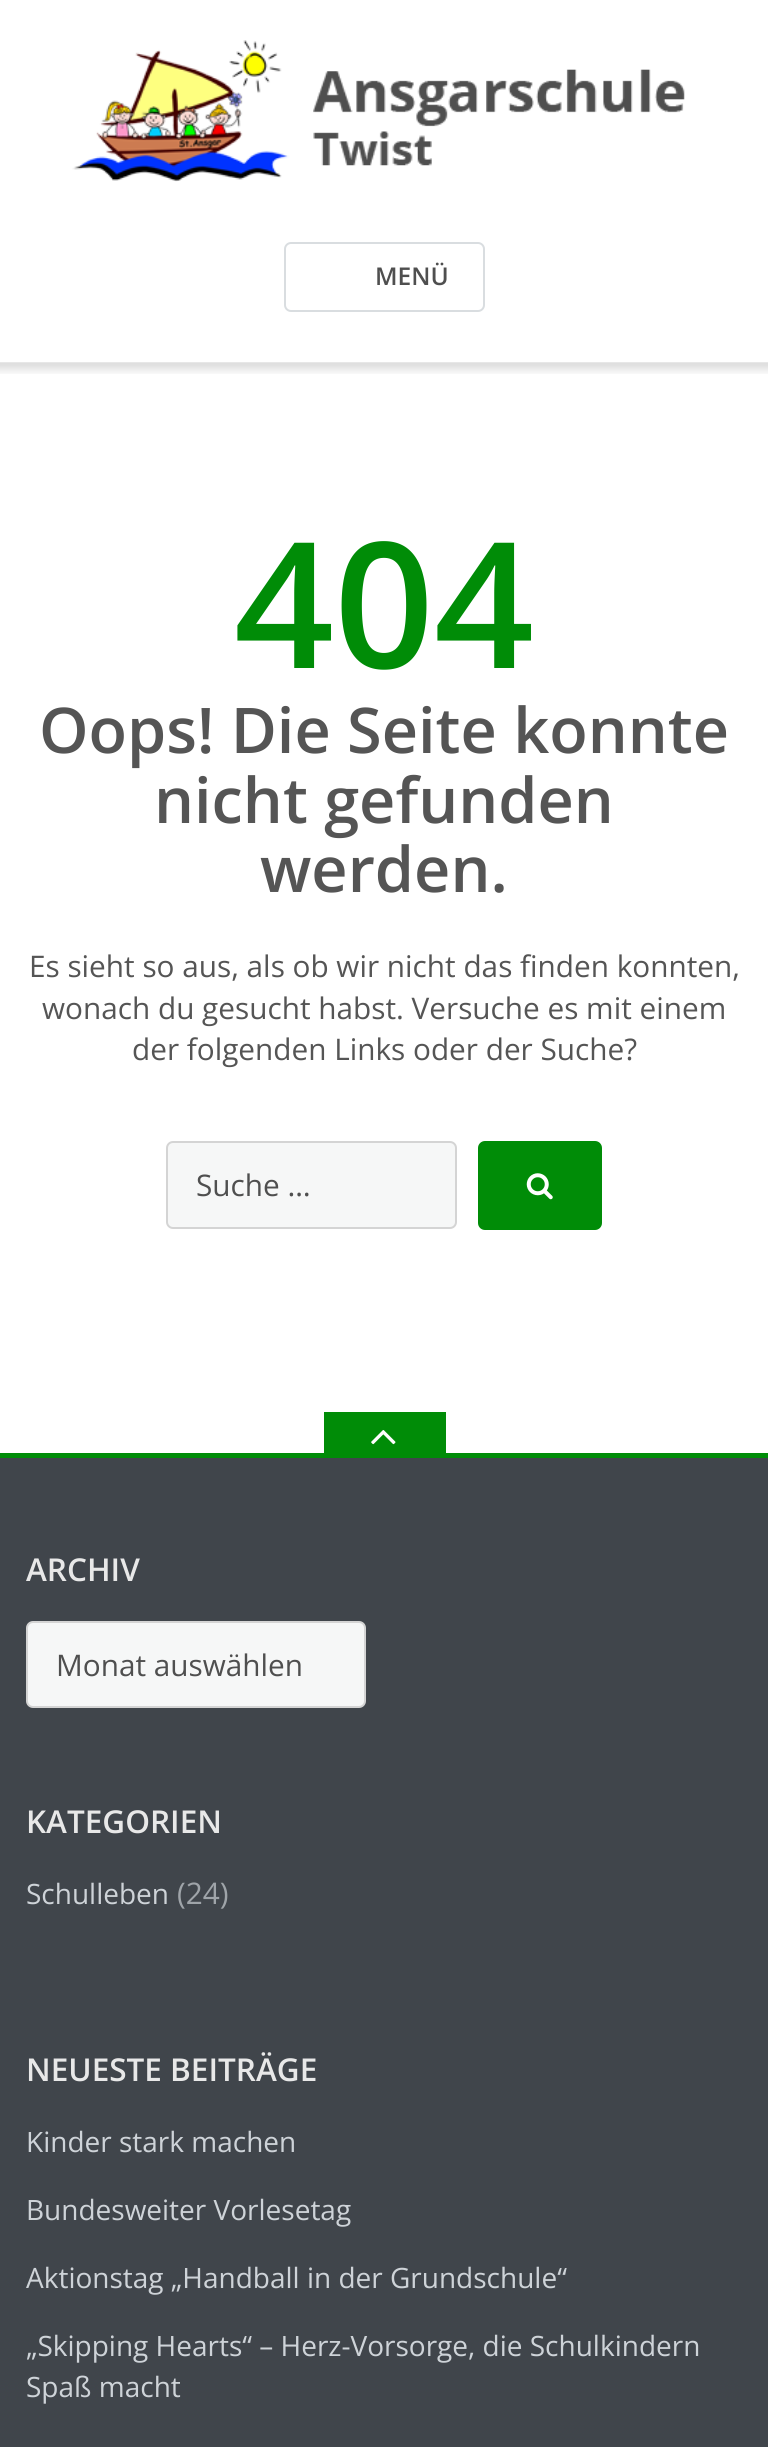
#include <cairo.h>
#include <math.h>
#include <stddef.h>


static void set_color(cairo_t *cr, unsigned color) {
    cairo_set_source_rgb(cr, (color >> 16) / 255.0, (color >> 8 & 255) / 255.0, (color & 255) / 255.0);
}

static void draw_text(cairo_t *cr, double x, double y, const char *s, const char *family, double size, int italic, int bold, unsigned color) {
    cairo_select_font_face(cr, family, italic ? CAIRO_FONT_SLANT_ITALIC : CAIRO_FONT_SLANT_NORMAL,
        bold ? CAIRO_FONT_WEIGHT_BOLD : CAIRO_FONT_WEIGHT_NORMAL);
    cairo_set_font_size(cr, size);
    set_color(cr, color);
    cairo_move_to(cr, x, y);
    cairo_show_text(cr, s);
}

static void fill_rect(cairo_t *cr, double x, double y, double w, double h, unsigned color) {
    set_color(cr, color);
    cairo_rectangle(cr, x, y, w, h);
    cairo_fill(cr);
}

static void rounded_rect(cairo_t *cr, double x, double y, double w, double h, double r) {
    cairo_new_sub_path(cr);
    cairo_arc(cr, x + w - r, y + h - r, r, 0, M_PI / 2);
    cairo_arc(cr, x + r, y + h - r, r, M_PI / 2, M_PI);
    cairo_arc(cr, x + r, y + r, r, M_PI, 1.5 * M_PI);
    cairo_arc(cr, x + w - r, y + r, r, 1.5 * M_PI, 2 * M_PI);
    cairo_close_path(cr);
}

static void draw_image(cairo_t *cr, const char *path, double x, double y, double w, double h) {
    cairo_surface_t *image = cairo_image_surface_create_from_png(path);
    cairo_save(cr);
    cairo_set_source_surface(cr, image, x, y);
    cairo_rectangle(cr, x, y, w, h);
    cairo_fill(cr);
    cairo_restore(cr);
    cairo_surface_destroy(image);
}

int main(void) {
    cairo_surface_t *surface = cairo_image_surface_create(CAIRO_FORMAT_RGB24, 768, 2447);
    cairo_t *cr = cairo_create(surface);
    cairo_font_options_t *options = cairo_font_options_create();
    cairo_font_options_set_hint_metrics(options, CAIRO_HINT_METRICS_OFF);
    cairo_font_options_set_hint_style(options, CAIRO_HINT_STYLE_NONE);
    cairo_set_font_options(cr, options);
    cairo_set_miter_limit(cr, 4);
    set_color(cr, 0xFFFFFF);
    cairo_paint(cr);
    draw_image(cr, "assets/img1.png", 72, 40, 613, 142);
    rounded_rect(cr, 285, 243, 199, 68, 6);
    set_color(cr, 0xD9DDE0);
    cairo_stroke(cr);
    draw_text(cr, 375, 285, "MENÜ", "Open Sans SemiBold", 24.5, 0, 0, 0x4F4F4F);
    draw_image(cr, "assets/img2.png", 0, 362, 768, 12);
    draw_text(cr, 234, 668, "404", "Open Sans SemiBold", 175, 0, 0, 0x008C07);
    draw_text(cr, 39, 753, "Oops! Die Seite konnte", "Open Sans SemiBold", 63, 0, 0, 0x555555);
    draw_text(cr, 154, 823, "nicht gefunden", "Open Sans SemiBold", 63, 0, 0, 0x555555);
    draw_text(cr, 260, 892, "werden.", "Open Sans SemiBold", 63, 0, 0, 0x555555);
    draw_text(cr, 29, 977, "Es sieht so aus, als ob wir nicht das finden konnten,", "Open Sans", 29.75, 0, 0, 0x555555);
    draw_text(cr, 42, 1019, "wonach du gesucht habst. Versuche es mit einem", "Open Sans", 29.75, 0, 0, 0x555555);
    draw_text(cr, 132, 1060, "der folgenden Links oder der Suche?", "Open Sans", 29.75, 0, 0, 0x555555);
    set_color(cr, 0xF6F7F7);
    rounded_rect(cr, 167, 1142, 289, 86, 6);
    cairo_fill_preserve(cr);
    set_color(cr, 0xD4D4D4);
    cairo_stroke(cr);
    draw_text(cr, 196, 1196, "Suche …", "Open Sans", 29.75, 0, 0, 0x4F4F4F);
    set_color(cr, 0x008C07);
    rounded_rect(cr, 478, 1141, 124, 89, 7);
    cairo_fill(cr);
    draw_image(cr, "assets/img3.png", 526, 1173, 27, 27);
    fill_rect(cr, 0, 1453, 768, 5, 0x008C07);
    fill_rect(cr, 324, 1412, 122, 41, 0x008C07);
    draw_image(cr, "assets/img4.png", 371, 1430, 25, 15);
    fill_rect(cr, 0, 1458, 768, 989, 0x40454B);
    draw_text(cr, 26, 1581, "ARCHIV", "Open Sans SemiBold", 31.5, 0, 0, 0xE8E8E8);
    set_color(cr, 0xF6F7F7);
    rounded_rect(cr, 27, 1622, 338, 85, 6);
    cairo_fill_preserve(cr);
    set_color(cr, 0xD4D4D4);
    cairo_stroke(cr);
    draw_text(cr, 56, 1676, "Monat auswählen", "Open Sans", 29.75, 0, 0, 0x4F4F4F);
    draw_text(cr, 26, 1833, "KATEGORIEN", "Open Sans SemiBold", 31.5, 0, 0, 0xE8E8E8);
    draw_text(cr, 26, 1904, "Schulleben", "Open Sans", 28, 0, 0, 0xCED3D8);
    draw_text(cr, 177, 1904, "(24)", "Open Sans", 29.75, 0, 0, 0x9FA4A9);
    draw_text(cr, 26, 2081, "NEUESTE BEITRÄGE", "Open Sans SemiBold", 31.5, 0, 0, 0xE8E8E8);
    draw_text(cr, 26, 2152, "Kinder stark machen", "Open Sans", 28, 0, 0, 0xCED3D8);
    draw_text(cr, 26, 2220, "Bundesweiter Vorlesetag", "Open Sans", 28, 0, 0, 0xCED3D8);
    draw_text(cr, 26, 2288, "Aktionstag „Handball in der Grundschule“", "Open Sans", 28, 0, 0, 0xCED3D8);
    draw_text(cr, 26, 2356, "„Skipping Hearts“ – Herz-Vorsorge, die Schulkindern", "Open Sans", 28, 0, 0, 0xCED3D8);
    draw_text(cr, 26, 2397, "Spaß macht", "Open Sans", 28, 0, 0, 0xCED3D8);
    cairo_surface_write_to_png(surface, "output.png");
    cairo_font_options_destroy(options);
    cairo_destroy(cr);
    cairo_surface_destroy(surface);
    return 0;
}
